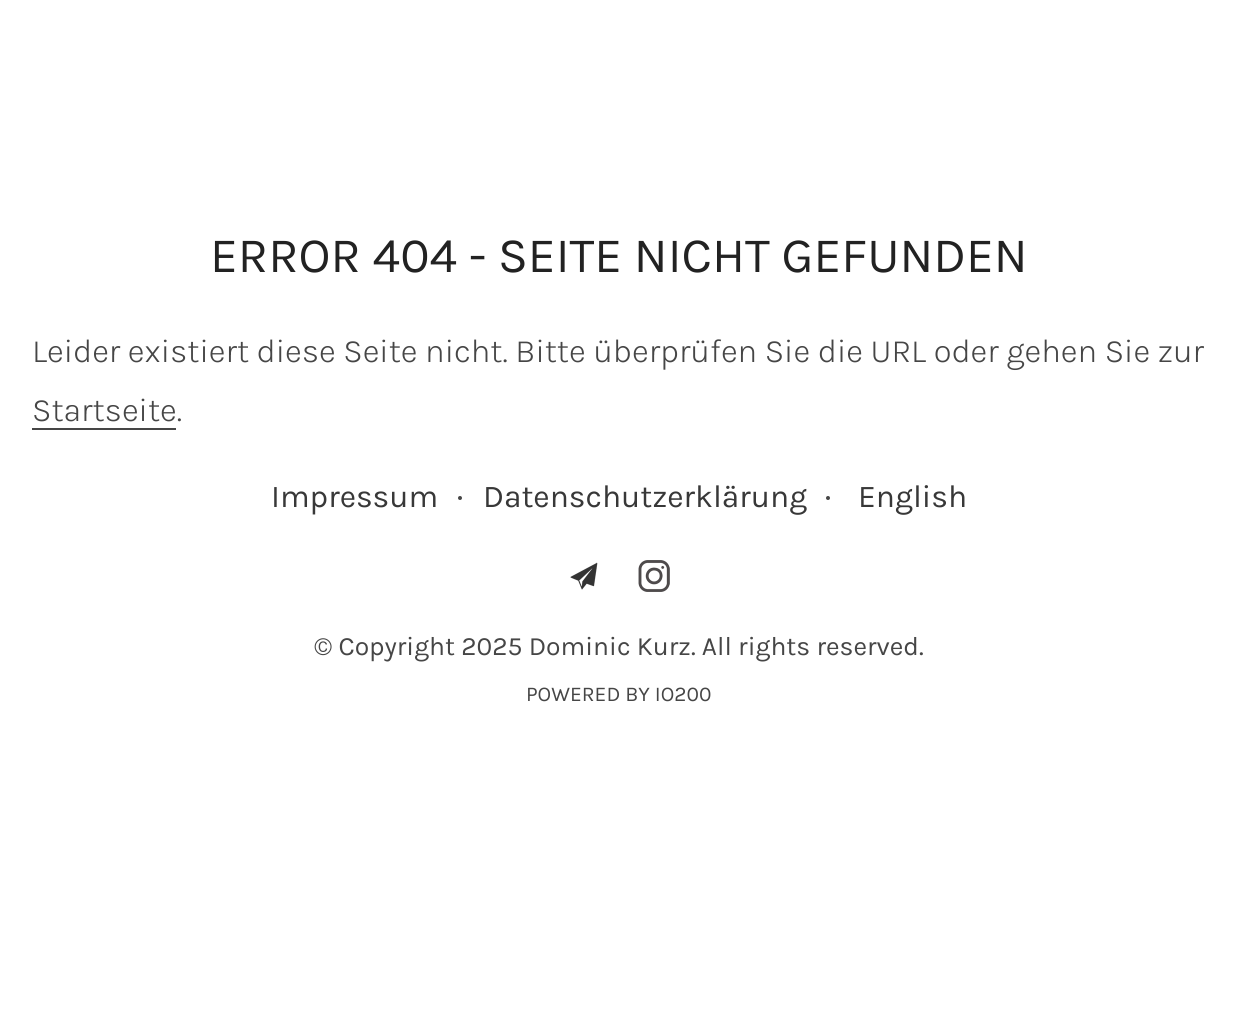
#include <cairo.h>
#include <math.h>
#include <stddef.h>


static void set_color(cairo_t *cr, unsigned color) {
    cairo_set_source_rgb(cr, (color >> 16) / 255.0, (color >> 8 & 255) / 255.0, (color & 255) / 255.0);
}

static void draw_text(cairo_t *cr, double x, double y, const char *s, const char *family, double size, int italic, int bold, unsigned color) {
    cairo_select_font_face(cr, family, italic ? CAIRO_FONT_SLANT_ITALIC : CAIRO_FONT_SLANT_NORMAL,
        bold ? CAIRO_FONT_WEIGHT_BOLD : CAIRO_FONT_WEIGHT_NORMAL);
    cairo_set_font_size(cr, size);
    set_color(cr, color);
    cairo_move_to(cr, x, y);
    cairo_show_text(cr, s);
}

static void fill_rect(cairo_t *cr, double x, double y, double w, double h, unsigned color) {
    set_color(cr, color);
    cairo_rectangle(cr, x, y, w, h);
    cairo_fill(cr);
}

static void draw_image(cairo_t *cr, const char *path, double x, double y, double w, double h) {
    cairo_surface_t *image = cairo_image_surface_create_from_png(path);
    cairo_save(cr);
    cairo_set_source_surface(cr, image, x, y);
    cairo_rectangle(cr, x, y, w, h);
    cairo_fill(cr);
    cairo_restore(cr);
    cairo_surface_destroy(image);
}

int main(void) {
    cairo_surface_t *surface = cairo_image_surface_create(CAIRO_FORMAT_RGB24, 1238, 1020);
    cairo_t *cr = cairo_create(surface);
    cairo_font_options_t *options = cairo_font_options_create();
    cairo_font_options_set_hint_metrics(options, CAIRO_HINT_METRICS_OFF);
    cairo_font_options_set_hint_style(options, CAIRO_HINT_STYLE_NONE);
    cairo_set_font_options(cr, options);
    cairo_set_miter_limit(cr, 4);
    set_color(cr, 0xFFFFFF);
    cairo_paint(cr);
    draw_text(cr, 210, 272, "ERROR 404 - SEITE NICHT GEFUNDEN", "Karla", 49.5, 0, 0, 0x222222);
    draw_text(cr, 32, 362, "Leider existiert diese Seite nicht. Bitte überprüfen Sie die URL oder gehen Sie zur", "Karla Light", 33, 0, 0, 0x464646);
    draw_text(cr, 32, 421, "Startseite.", "Karla Light", 33, 0, 0, 0x464646);
    fill_rect(cr, 32, 428, 144, 2, 0x464646);
    draw_text(cr, 271, 507, "Impressum", "Karla", 31.75, 0, 0, 0x383838);
    set_color(cr, 0x464646);
    cairo_new_path(cr);
    cairo_arc(cr, 460, 498, 2, 0, 2 * M_PI);
    cairo_fill(cr);
    draw_text(cr, 483, 507, "Datenschutzerklärung", "Karla", 31.75, 0, 0, 0x383838);
    set_color(cr, 0x464646);
    cairo_new_path(cr);
    cairo_arc(cr, 828, 498, 2, 0, 2 * M_PI);
    cairo_fill(cr);
    draw_text(cr, 858, 507, "English", "Karla", 31.75, 0, 0, 0x383838);
    draw_image(cr, "assets/img1.png", 570, 562, 28, 28);
    draw_image(cr, "assets/img2.png", 638, 560, 32, 32);
    draw_text(cr, 314, 655, "© Copyright 2025 Dominic Kurz. All rights reserved.", "Karla", 26.4, 0, 0, 0x464646);
    draw_text(cr, 526, 701, "POWERED BY IO200", "Karla", 21, 0, 0, 0x464646);
    cairo_surface_write_to_png(surface, "output.png");
    cairo_font_options_destroy(options);
    cairo_destroy(cr);
    cairo_surface_destroy(surface);
    return 0;
}
